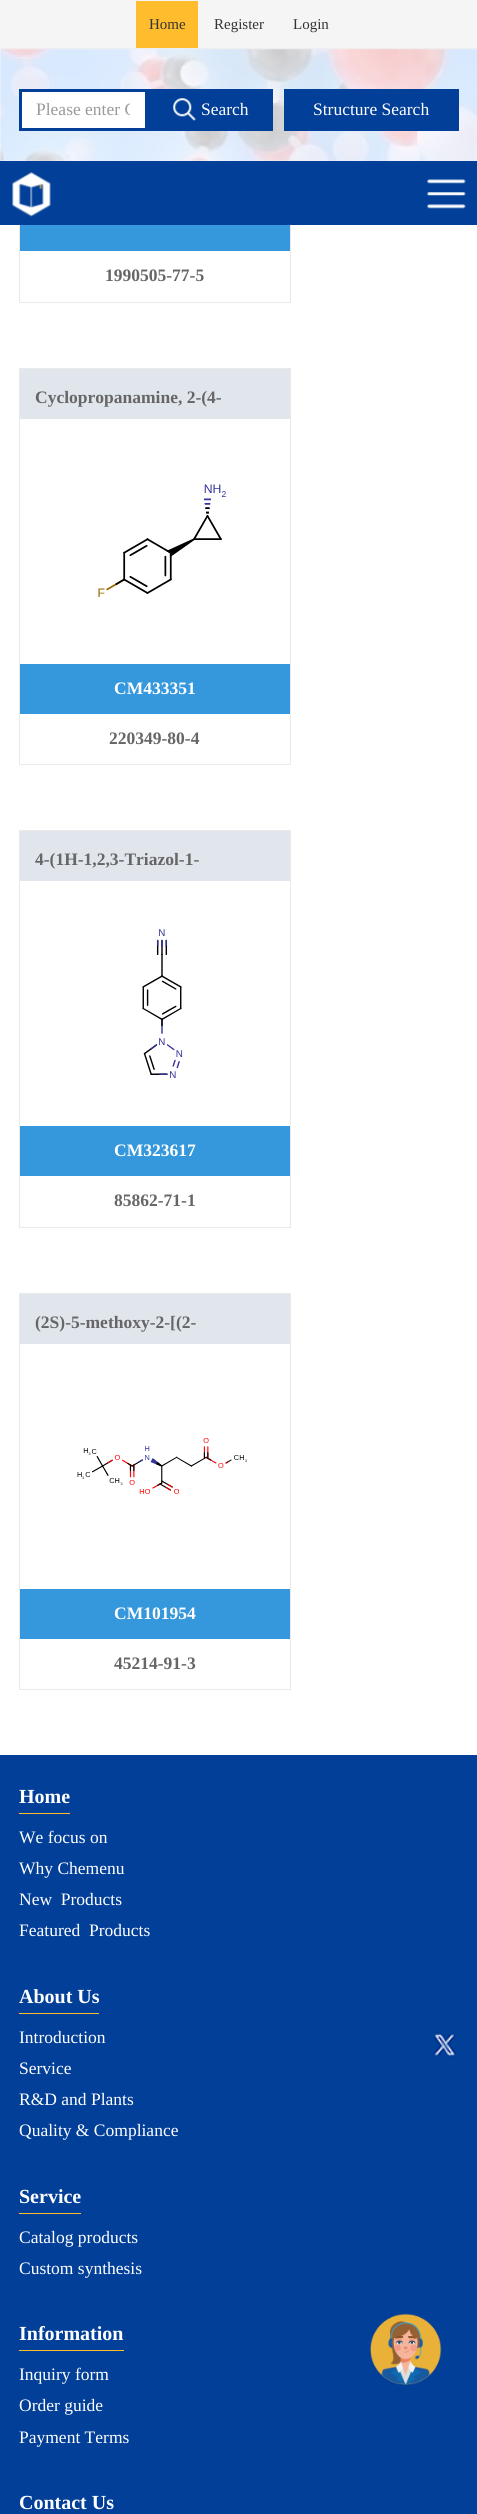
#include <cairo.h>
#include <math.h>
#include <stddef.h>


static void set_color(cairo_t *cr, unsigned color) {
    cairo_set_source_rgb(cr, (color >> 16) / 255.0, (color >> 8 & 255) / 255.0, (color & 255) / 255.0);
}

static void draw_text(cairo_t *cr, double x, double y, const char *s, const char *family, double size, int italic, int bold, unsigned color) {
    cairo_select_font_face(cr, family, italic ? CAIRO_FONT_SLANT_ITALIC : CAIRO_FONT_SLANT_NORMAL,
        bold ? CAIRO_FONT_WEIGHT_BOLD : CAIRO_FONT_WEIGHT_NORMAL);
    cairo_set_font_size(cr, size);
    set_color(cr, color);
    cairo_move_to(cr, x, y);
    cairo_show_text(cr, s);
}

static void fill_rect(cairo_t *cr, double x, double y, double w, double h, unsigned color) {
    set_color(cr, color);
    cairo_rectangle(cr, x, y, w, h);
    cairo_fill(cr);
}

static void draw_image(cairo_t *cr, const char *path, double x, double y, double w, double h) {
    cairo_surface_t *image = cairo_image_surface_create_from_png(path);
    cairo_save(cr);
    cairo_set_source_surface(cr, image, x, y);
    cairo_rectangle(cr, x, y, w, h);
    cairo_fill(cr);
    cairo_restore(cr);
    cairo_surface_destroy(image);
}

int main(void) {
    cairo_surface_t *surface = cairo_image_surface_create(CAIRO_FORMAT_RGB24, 477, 2514);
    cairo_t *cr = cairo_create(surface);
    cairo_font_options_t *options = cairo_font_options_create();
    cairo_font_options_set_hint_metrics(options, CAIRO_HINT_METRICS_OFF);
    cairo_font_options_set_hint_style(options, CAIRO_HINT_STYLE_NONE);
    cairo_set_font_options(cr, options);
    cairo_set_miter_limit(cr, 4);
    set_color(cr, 0xFFFFFF);
    cairo_paint(cr);
    cairo_rectangle(cr, 19.5, -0.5, 271, 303);
    set_color(cr, 0xEAEAEA);
    cairo_set_line_width(cr, 1);
    cairo_stroke(cr);
    fill_rect(cr, 0, 0, 477, 48, 0xF5F5F5);
    fill_rect(cr, 0, 48, 477, 1, 0xEEEEEE);
    fill_rect(cr, 136, 1, 62, 47, 0xFFBD2E);
    draw_text(cr, 149, 29, "Home", "Liberation Serif", 15, 0, 0, 0x333333);
    draw_text(cr, 214, 29, "Register", "Liberation Serif", 15, 0, 0, 0x333333);
    draw_text(cr, 293, 29, "Login", "Liberation Serif", 15, 0, 0, 0x333333);
    draw_image(cr, "assets/img1.png", 0, 49, 477, 112);
    set_color(cr, 0xFFFFFF);
    cairo_rectangle(cr, 20.5, 90.5, 126, 39);
    cairo_fill_preserve(cr);
    set_color(cr, 0x023F98);
    cairo_set_line_width(cr, 3);
    cairo_stroke(cr);
    cairo_save(cr);
    cairo_rectangle(cr, 36, 100, 94, 20);
    cairo_clip(cr);
    draw_text(cr, 36, 115, "Please enter C", "Liberation Serif", 17.5, 0, 0, 0x999999);
    cairo_restore(cr);
    fill_rect(cr, 148, 89, 125, 42, 0x023F98);
    draw_image(cr, "assets/img2.png", 173, 98, 23, 23);
    draw_text(cr, 201, 115, "Search", "Liberation Serif", 17.5, 0, 0, 0xFFFFFF);
    fill_rect(cr, 284, 89, 175, 42, 0x023F98);
    draw_text(cr, 313, 115, "Structure Search", "Liberation Serif", 17.5, 0, 0, 0xFFFFFF);
    fill_rect(cr, 0, 1755, 477, 759, 0x023F98);
    draw_image(cr, "assets/img3.png", 433, 2032, 24, 26);
    draw_image(cr, "assets/img4.png", 370, 2313, 72, 72);
    fill_rect(cr, 0, 161, 477, 64, 0x023F98);
    draw_image(cr, "assets/img5.png", 12, 172, 39, 45);
    draw_image(cr, "assets/img6.png", 427, 179, 39, 30);
    fill_rect(cr, 20, 225, 270, 26, 0x3598DC);
    draw_text(cr, 105, 281, "1990505-77-5", "Liberation Serif", 17.5, 0, 1, 0x666666);
    cairo_rectangle(cr, 19.5, 368.5, 271, 396);
    set_color(cr, 0xEAEAEA);
    cairo_set_line_width(cr, 1);
    cairo_stroke(cr);
    fill_rect(cr, 20, 369, 270, 50, 0xE1E5EC);
    draw_text(cr, 35, 403, "Cyclopropanamine, 2-(4-", "Liberation Serif", 17.5, 0, 1, 0x666666);
    draw_image(cr, "assets/img7.png", 98, 484, 128, 113);
    fill_rect(cr, 20, 664, 270, 50, 0x3598DC);
    draw_text(cr, 114, 694, "CM433351", "Liberation Serif", 17.5, 0, 1, 0xFFFFFF);
    draw_text(cr, 109, 744, "220349-80-4", "Liberation Serif", 17.5, 0, 1, 0x666666);
    cairo_rectangle(cr, 19.5, 830.5, 271, 397);
    set_color(cr, 0xEAEAEA);
    cairo_stroke(cr);
    fill_rect(cr, 20, 831, 270, 50, 0xE1E5EC);
    draw_text(cr, 35, 865, "4-(1H-1,2,3-Triazol-1-", "Liberation Serif", 17.5, 0, 1, 0x666666);
    draw_image(cr, "assets/img8.png", 142, 929, 41, 149);
    fill_rect(cr, 20, 1126, 270, 50, 0x3598DC);
    draw_text(cr, 114, 1156, "CM323617", "Liberation Serif", 17.5, 0, 1, 0xFFFFFF);
    draw_text(cr, 114, 1206, "85862-71-1", "Liberation Serif", 17.5, 0, 1, 0x666666);
    cairo_rectangle(cr, 19.5, 1293.5, 271, 396);
    set_color(cr, 0xEAEAEA);
    cairo_stroke(cr);
    fill_rect(cr, 20, 1294, 270, 50, 0xE1E5EC);
    draw_text(cr, 35, 1328, "(2S)-5-methoxy-2-[(2-", "Liberation Serif", 17.5, 0, 1, 0x666666);
    draw_image(cr, "assets/img9.png", 77, 1438, 170, 56);
    fill_rect(cr, 20, 1589, 270, 50, 0x3598DC);
    draw_text(cr, 114, 1619, "CM101954", "Liberation Serif", 17.5, 0, 1, 0xFFFFFF);
    draw_text(cr, 114, 1669, "45214-91-3", "Liberation Serif", 17.5, 0, 1, 0x666666);
    draw_text(cr, 19, 1803, "Home", "Liberation Serif", 20, 0, 1, 0xFFFFFF);
    fill_rect(cr, 19, 1813, 51, 1, 0xFFBD2E);
    draw_text(cr, 19, 1843, "We focus on", "Liberation Serif", 17.5, 0, 0, 0xFFFFFF);
    draw_text(cr, 19, 1874, "Why Chemenu", "Liberation Serif", 17.5, 0, 0, 0xFFFFFF);
    draw_text(cr, 19, 1905, "New Products", "Liberation Serif", 17.5, 0, 0, 0xFFFFFF);
    draw_text(cr, 19, 1936, "Featured Products", "Liberation Serif", 17.5, 0, 0, 0xFFFFFF);
    draw_text(cr, 19, 2003, "About Us", "Liberation Serif", 20, 0, 1, 0xFFFFFF);
    fill_rect(cr, 19, 2013, 80, 1, 0xFFBD2E);
    draw_text(cr, 19, 2043, "Introduction", "Liberation Serif", 17.5, 0, 0, 0xFFFFFF);
    draw_text(cr, 19, 2074, "Service", "Liberation Serif", 17.5, 0, 0, 0xFFFFFF);
    draw_text(cr, 19, 2105, "R&D and Plants", "Liberation Serif", 17.5, 0, 0, 0xFFFFFF);
    draw_text(cr, 19, 2136, "Quality & Compliance", "Liberation Serif", 17.5, 0, 0, 0xFFFFFF);
    draw_text(cr, 19, 2203, "Service", "Liberation Serif", 20, 0, 1, 0xFFFFFF);
    fill_rect(cr, 19, 2213, 62, 1, 0xFFBD2E);
    draw_text(cr, 19, 2243, "Catalog products", "Liberation Serif", 17.5, 0, 0, 0xFFFFFF);
    draw_text(cr, 19, 2274, "Custom synthesis", "Liberation Serif", 17.5, 0, 0, 0xFFFFFF);
    draw_text(cr, 19, 2340, "Information", "Liberation Serif", 20, 0, 1, 0xFFFFFF);
    fill_rect(cr, 19, 2350, 105, 1, 0xFFBD2E);
    draw_text(cr, 19, 2380, "Inquiry form", "Liberation Serif", 17.5, 0, 0, 0xFFFFFF);
    draw_text(cr, 19, 2411, "Order guide", "Liberation Serif", 17.5, 0, 0, 0xFFFFFF);
    draw_text(cr, 19, 2443, "Payment Terms", "Liberation Serif", 17.5, 0, 0, 0xFFFFFF);
    draw_text(cr, 19, 2509, "Contact Us", "Liberation Serif", 20, 0, 1, 0xFFFFFF);
    cairo_surface_write_to_png(surface, "output.png");
    cairo_font_options_destroy(options);
    cairo_destroy(cr);
    cairo_surface_destroy(surface);
    return 0;
}
